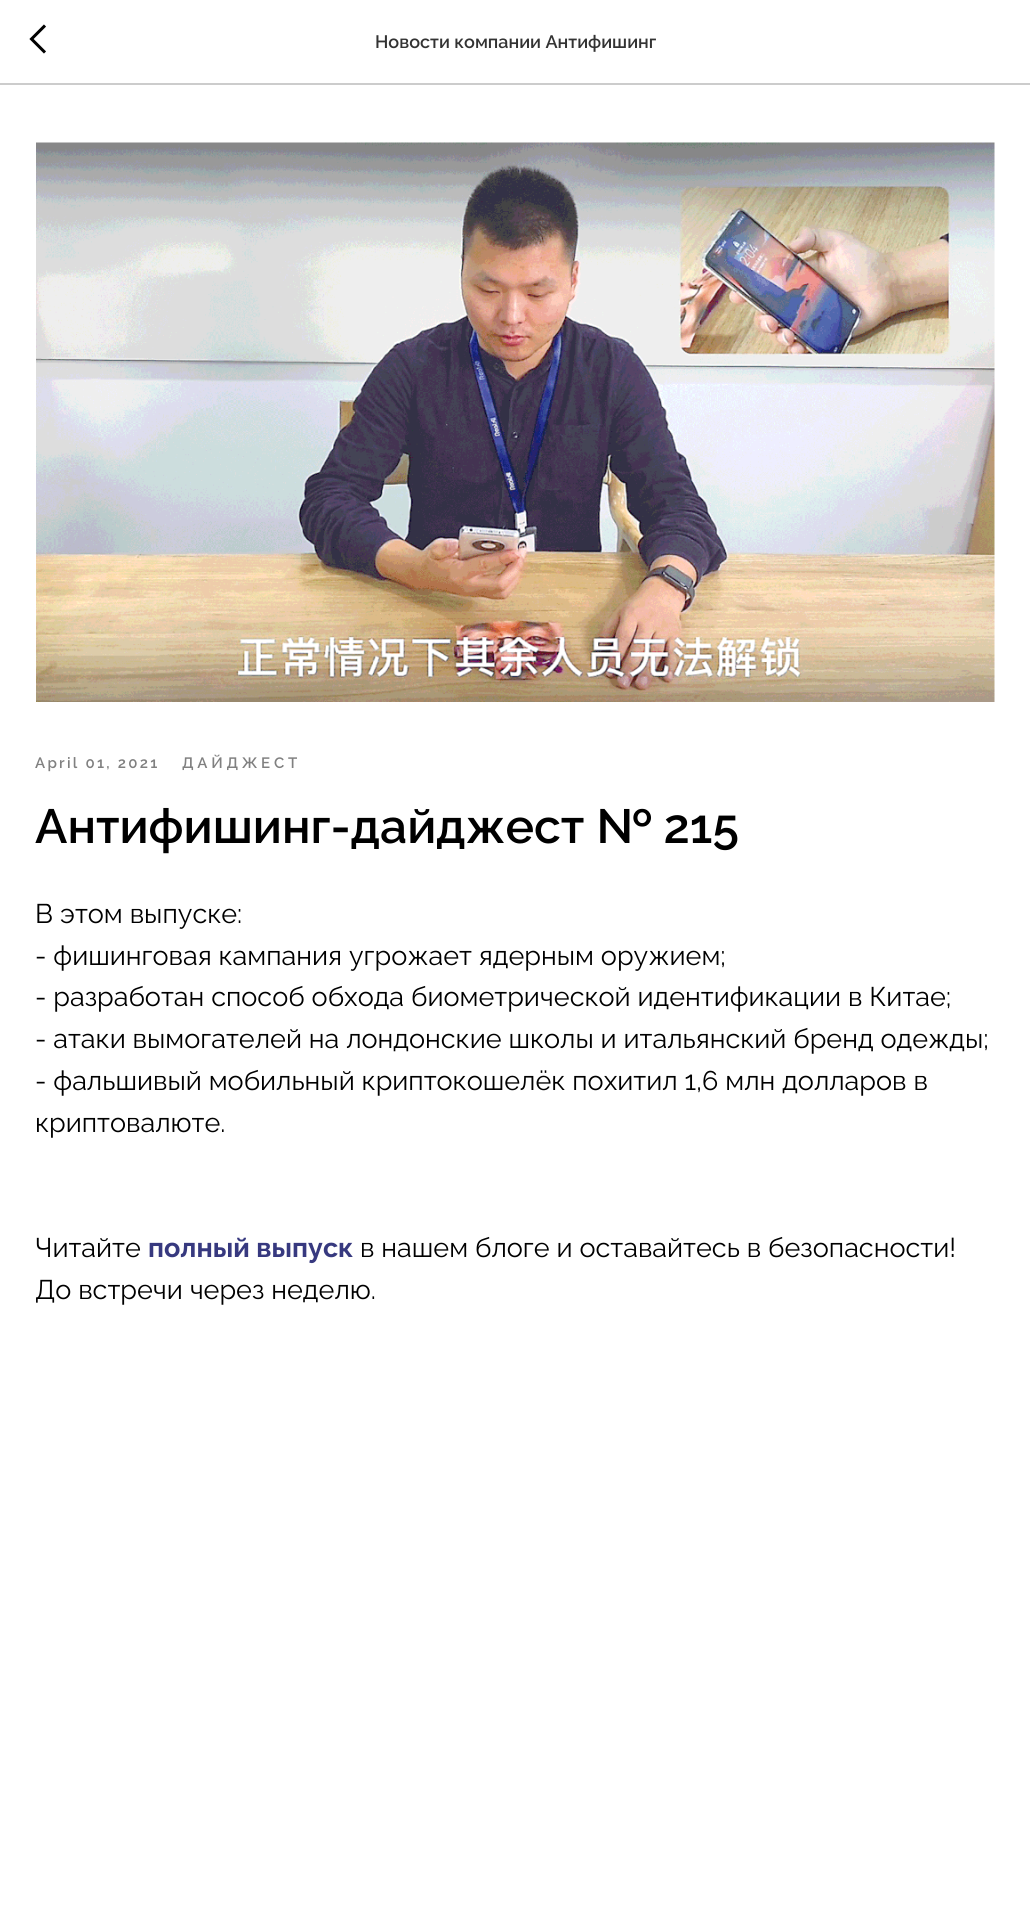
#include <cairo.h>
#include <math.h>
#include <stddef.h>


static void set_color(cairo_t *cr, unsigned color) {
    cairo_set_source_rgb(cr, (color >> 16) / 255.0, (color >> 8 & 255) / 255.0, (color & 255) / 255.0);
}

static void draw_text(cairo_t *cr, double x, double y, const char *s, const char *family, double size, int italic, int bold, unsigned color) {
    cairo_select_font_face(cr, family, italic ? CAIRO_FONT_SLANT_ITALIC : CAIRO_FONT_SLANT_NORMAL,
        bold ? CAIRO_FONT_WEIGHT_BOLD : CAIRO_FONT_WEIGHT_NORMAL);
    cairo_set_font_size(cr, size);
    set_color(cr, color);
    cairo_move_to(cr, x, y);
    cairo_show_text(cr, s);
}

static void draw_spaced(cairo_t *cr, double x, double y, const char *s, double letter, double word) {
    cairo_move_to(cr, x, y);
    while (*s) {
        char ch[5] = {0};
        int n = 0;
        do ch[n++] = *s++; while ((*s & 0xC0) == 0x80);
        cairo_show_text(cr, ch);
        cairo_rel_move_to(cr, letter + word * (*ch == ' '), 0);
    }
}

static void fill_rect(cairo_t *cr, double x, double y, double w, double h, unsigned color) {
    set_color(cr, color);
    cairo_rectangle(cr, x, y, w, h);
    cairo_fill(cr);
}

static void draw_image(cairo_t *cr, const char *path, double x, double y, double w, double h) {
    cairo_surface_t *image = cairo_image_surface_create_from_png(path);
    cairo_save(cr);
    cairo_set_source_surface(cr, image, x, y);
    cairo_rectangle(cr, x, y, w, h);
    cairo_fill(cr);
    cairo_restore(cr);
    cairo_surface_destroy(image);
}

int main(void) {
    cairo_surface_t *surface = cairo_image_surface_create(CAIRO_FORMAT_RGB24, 1030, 1911);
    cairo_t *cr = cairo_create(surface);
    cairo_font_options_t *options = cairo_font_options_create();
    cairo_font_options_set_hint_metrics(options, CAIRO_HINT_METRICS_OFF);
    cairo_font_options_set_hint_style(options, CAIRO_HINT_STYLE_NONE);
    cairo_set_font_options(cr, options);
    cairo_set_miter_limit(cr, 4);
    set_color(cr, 0xFFFFFF);
    cairo_paint(cr);
    fill_rect(cr, 0, 83, 1030, 2, 0xCCCCCC);
    cairo_new_path(cr);
    cairo_move_to(cr, 45, 52.5);
    cairo_line_to(cr, 31.5, 39);
    cairo_line_to(cr, 45, 25.5);
    set_color(cr, 0x000000);
    cairo_set_line_width(cr, 3);
    cairo_stroke(cr);
    draw_text(cr, 375, 48, "Новости компании Антифишинг", "Raleway SemiBold", 18, 0, 0, 0x333333);
    draw_image(cr, "assets/img1.png", 36, 142, 959, 560);
    cairo_set_font_size(cr, 15);
    set_color(cr, 0x808080);
    draw_spaced(cr, 35, 768, "April 01, 2021", 2.25, 0);
    draw_spaced(cr, 182, 768, "ДАЙДЖЕСТ", 3.75, 0);
    draw_text(cr, 35, 843, "Антифишинг-дайджест № 215", "Raleway SemiBold", 48, 0, 0, 0x000000);
    draw_text(cr, 35, 923, "В этом выпуске:", "Raleway", 27, 0, 0, 0x000000);
    draw_text(cr, 35, 965, "- фишинговая кампания угрожает ядерным оружием;", "Raleway", 27, 0, 0, 0x000000);
    draw_text(cr, 35, 1006, "- разработан способ обхода биометрической идентификации в Китае;", "Raleway", 27, 0, 0, 0x000000);
    draw_text(cr, 35, 1048, "- атаки вымогателей на лондонские школы и итальянский бренд одежды;", "Raleway", 27, 0, 0, 0x000000);
    draw_text(cr, 35, 1090, "- фальшивый мобильный криптокошелёк похитил 1,6 млн долларов в", "Raleway", 27, 0, 0, 0x000000);
    draw_text(cr, 35, 1132, "криптовалюте.", "Raleway", 27, 0, 0, 0x000000);
    draw_text(cr, 35, 1257, "Читайте", "Raleway", 27, 0, 0, 0x000000);
    draw_text(cr, 148, 1257, "полный выпуск", "Raleway", 27, 0, 1, 0x37397F);
    draw_text(cr, 360, 1257, "в нашем блоге и оставайтесь в безопасности!", "Raleway", 27, 0, 0, 0x000000);
    draw_text(cr, 35, 1299, "До встречи через неделю.", "Raleway", 27, 0, 0, 0x000000);
    cairo_surface_write_to_png(surface, "output.png");
    cairo_font_options_destroy(options);
    cairo_destroy(cr);
    cairo_surface_destroy(surface);
    return 0;
}
